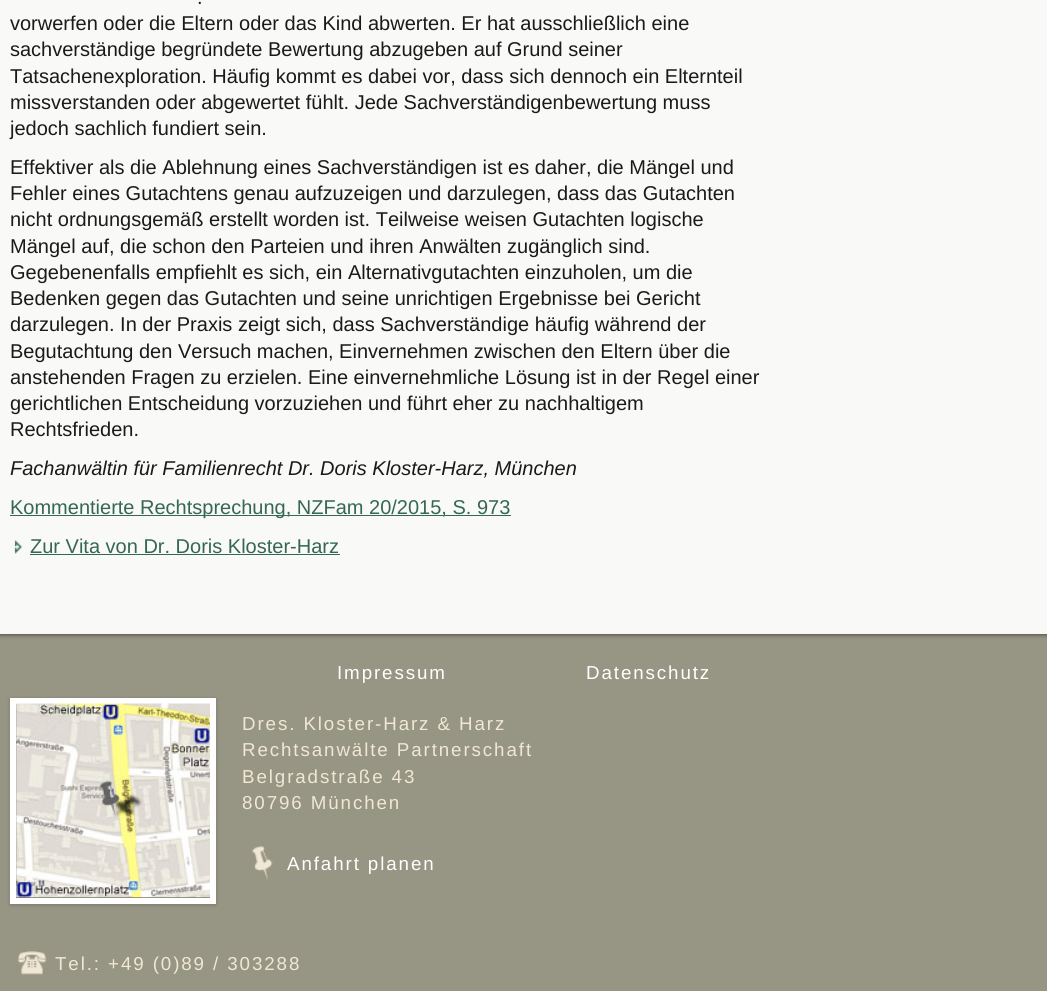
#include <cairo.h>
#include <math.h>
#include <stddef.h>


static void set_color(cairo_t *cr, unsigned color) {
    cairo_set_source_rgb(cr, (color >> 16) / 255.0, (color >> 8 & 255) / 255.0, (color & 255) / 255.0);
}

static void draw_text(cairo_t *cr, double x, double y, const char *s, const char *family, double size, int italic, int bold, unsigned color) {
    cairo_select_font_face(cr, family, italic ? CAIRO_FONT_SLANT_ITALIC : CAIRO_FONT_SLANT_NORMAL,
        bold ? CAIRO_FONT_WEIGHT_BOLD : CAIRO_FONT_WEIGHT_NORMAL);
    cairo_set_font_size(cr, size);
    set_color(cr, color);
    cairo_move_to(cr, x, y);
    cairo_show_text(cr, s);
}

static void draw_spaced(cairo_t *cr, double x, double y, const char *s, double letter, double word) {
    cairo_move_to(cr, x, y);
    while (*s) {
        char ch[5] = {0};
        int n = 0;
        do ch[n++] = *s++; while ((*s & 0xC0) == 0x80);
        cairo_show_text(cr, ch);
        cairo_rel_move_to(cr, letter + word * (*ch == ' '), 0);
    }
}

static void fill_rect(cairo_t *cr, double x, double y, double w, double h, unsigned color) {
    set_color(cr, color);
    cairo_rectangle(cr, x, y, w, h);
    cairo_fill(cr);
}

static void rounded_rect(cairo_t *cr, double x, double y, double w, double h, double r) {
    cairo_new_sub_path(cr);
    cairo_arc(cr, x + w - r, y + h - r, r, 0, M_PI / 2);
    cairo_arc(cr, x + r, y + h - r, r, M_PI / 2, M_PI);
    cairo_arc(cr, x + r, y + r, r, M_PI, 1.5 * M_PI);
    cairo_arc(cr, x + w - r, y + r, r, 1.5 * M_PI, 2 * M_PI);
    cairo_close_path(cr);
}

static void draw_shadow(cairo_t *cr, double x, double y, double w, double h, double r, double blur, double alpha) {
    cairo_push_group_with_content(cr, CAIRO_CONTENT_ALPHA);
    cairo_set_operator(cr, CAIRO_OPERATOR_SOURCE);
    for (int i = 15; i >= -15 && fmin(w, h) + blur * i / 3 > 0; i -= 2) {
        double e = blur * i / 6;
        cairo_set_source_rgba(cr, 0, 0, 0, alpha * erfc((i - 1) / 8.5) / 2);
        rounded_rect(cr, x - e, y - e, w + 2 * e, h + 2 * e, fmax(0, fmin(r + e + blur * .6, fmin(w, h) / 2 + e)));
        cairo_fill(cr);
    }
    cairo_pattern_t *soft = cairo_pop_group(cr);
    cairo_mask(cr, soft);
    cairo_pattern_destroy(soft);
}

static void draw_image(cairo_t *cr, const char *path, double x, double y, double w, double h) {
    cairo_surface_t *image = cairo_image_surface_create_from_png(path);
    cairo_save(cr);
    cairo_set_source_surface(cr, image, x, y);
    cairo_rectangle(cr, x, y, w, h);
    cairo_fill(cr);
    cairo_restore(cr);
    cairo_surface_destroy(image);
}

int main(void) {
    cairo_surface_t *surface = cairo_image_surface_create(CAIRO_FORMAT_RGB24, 1047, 991);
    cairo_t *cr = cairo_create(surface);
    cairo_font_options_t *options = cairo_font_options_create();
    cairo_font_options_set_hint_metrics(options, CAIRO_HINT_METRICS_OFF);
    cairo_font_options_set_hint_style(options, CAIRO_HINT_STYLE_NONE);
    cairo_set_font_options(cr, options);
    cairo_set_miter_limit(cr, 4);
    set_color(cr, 0x979584);
    cairo_paint(cr);
    set_color(cr, 0x000000);
    draw_shadow(cr, 0, -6, 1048, 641, 0, 2, 0.5);
    fill_rect(cr, 0, 0, 1047, 634, 0xF9F9F7);
    draw_text(cr, 197, 4, ".", "Liberation Sans", 20, 0, 0, 0x1A1A1A);
    draw_text(cr, 10, 30, "vorwerfen oder die Eltern oder das Kind abwerten. Er hat ausschließlich eine", "Liberation Sans", 20, 0, 0, 0x1A1A1A);
    draw_text(cr, 10, 56, "sachverständige begründete Bewertung abzugeben auf Grund seiner", "Liberation Sans", 20, 0, 0, 0x1A1A1A);
    draw_text(cr, 10, 83, "Tatsachenexploration. Häufig kommt es dabei vor, dass sich dennoch ein Elternteil", "Liberation Sans", 20, 0, 0, 0x1A1A1A);
    draw_text(cr, 10, 109, "missverstanden oder abgewertet fühlt. Jede Sachverständigenbewertung muss", "Liberation Sans", 20, 0, 0, 0x1A1A1A);
    draw_text(cr, 10, 135, "jedoch sachlich fundiert sein.", "Liberation Sans", 20, 0, 0, 0x1A1A1A);
    draw_text(cr, 10, 174, "Effektiver als die Ablehnung eines Sachverständigen ist es daher, die Mängel und", "Liberation Sans", 20, 0, 0, 0x1A1A1A);
    draw_text(cr, 10, 200, "Fehler eines Gutachtens genau aufzuzeigen und darzulegen, dass das Gutachten", "Liberation Sans", 20, 0, 0, 0x1A1A1A);
    draw_text(cr, 10, 226, "nicht ordnungsgemäß erstellt worden ist. Teilweise weisen Gutachten logische", "Liberation Sans", 20, 0, 0, 0x1A1A1A);
    draw_text(cr, 10, 253, "Mängel auf, die schon den Parteien und ihren Anwälten zugänglich sind.", "Liberation Sans", 20, 0, 0, 0x1A1A1A);
    draw_text(cr, 10, 279, "Gegebenenfalls empfiehlt es sich, ein Alternativgutachten einzuholen, um die", "Liberation Sans", 20, 0, 0, 0x1A1A1A);
    draw_text(cr, 10, 305, "Bedenken gegen das Gutachten und seine unrichtigen Ergebnisse bei Gericht", "Liberation Sans", 20, 0, 0, 0x1A1A1A);
    draw_text(cr, 10, 331, "darzulegen. In der Praxis zeigt sich, dass Sachverständige häufig während der", "Liberation Sans", 20, 0, 0, 0x1A1A1A);
    draw_text(cr, 10, 358, "Begutachtung den Versuch machen, Einvernehmen zwischen den Eltern über die", "Liberation Sans", 20, 0, 0, 0x1A1A1A);
    draw_text(cr, 10, 384, "anstehenden Fragen zu erzielen. Eine einvernehmliche Lösung ist in der Regel einer", "Liberation Sans", 20, 0, 0, 0x1A1A1A);
    draw_text(cr, 10, 410, "gerichtlichen Entscheidung vorzuziehen und führt eher zu nachhaltigem", "Liberation Sans", 20, 0, 0, 0x1A1A1A);
    draw_text(cr, 10, 436, "Rechtsfrieden.", "Liberation Sans", 20, 0, 0, 0x1A1A1A);
    draw_text(cr, 10, 475, "Fachanwältin für Familienrecht Dr. Doris Kloster-Harz, München", "Liberation Sans", 20, 1, 0, 0x1A1A1A);
    fill_rect(cr, 10, 515, 501, 1, 0x346756);
    draw_text(cr, 10, 514, "Kommentierte Rechtsprechung, NZFam 20/2015, S. 973", "Liberation Sans", 20, 0, 0, 0x346756);
    draw_image(cr, "assets/img1.png", 14, 539, 9, 15);
    draw_text(cr, 30, 553, "Zur Vita von Dr. Doris Kloster-Harz", "Liberation Sans", 20, 0, 0, 0x346756);
    fill_rect(cr, 30, 554, 310, 1, 0x346756);
    cairo_set_font_size(cr, 18.75);
    set_color(cr, 0xFFFFFF);
    draw_spaced(cr, 337, 679, "Impressum", 1.9, 0);
    draw_spaced(cr, 586, 679, "Datenschutz", 1.9, 0);
    set_color(cr, 0x000000);
    draw_shadow(cr, 10, 699, 206, 206, 0, 2, 0.2);
    cairo_rectangle(cr, 13, 701, 200, 200);
    set_color(cr, 0xFFFFFF);
    cairo_set_line_width(cr, 6);
    cairo_stroke(cr);
    draw_image(cr, "assets/img2.png", 16, 703, 194, 195);
    set_color(cr, 0xF0E7D6);
    draw_spaced(cr, 242, 730, "Dres. Kloster-Harz & Harz", 1.9, 0);
    draw_spaced(cr, 242, 756, "Rechtsanwälte Partnerschaft", 1.9, 0);
    draw_spaced(cr, 242, 783, "Belgradstraße 43", 1.9, 0);
    draw_spaced(cr, 242, 809, "80796 München", 1.9, 0);
    draw_image(cr, "assets/img3.png", 252, 846, 21, 34);
    set_color(cr, 0xFFFFFF);
    draw_spaced(cr, 287, 870, "Anfahrt planen", 1.9, 0);
    draw_image(cr, "assets/img4.png", 17, 951, 30, 24);
    set_color(cr, 0xF0E7D6);
    draw_spaced(cr, 55, 970, "Tel.: +49 (0)89 / 303288", 1.9, 0);
    cairo_surface_write_to_png(surface, "output.png");
    cairo_font_options_destroy(options);
    cairo_destroy(cr);
    cairo_surface_destroy(surface);
    return 0;
}
